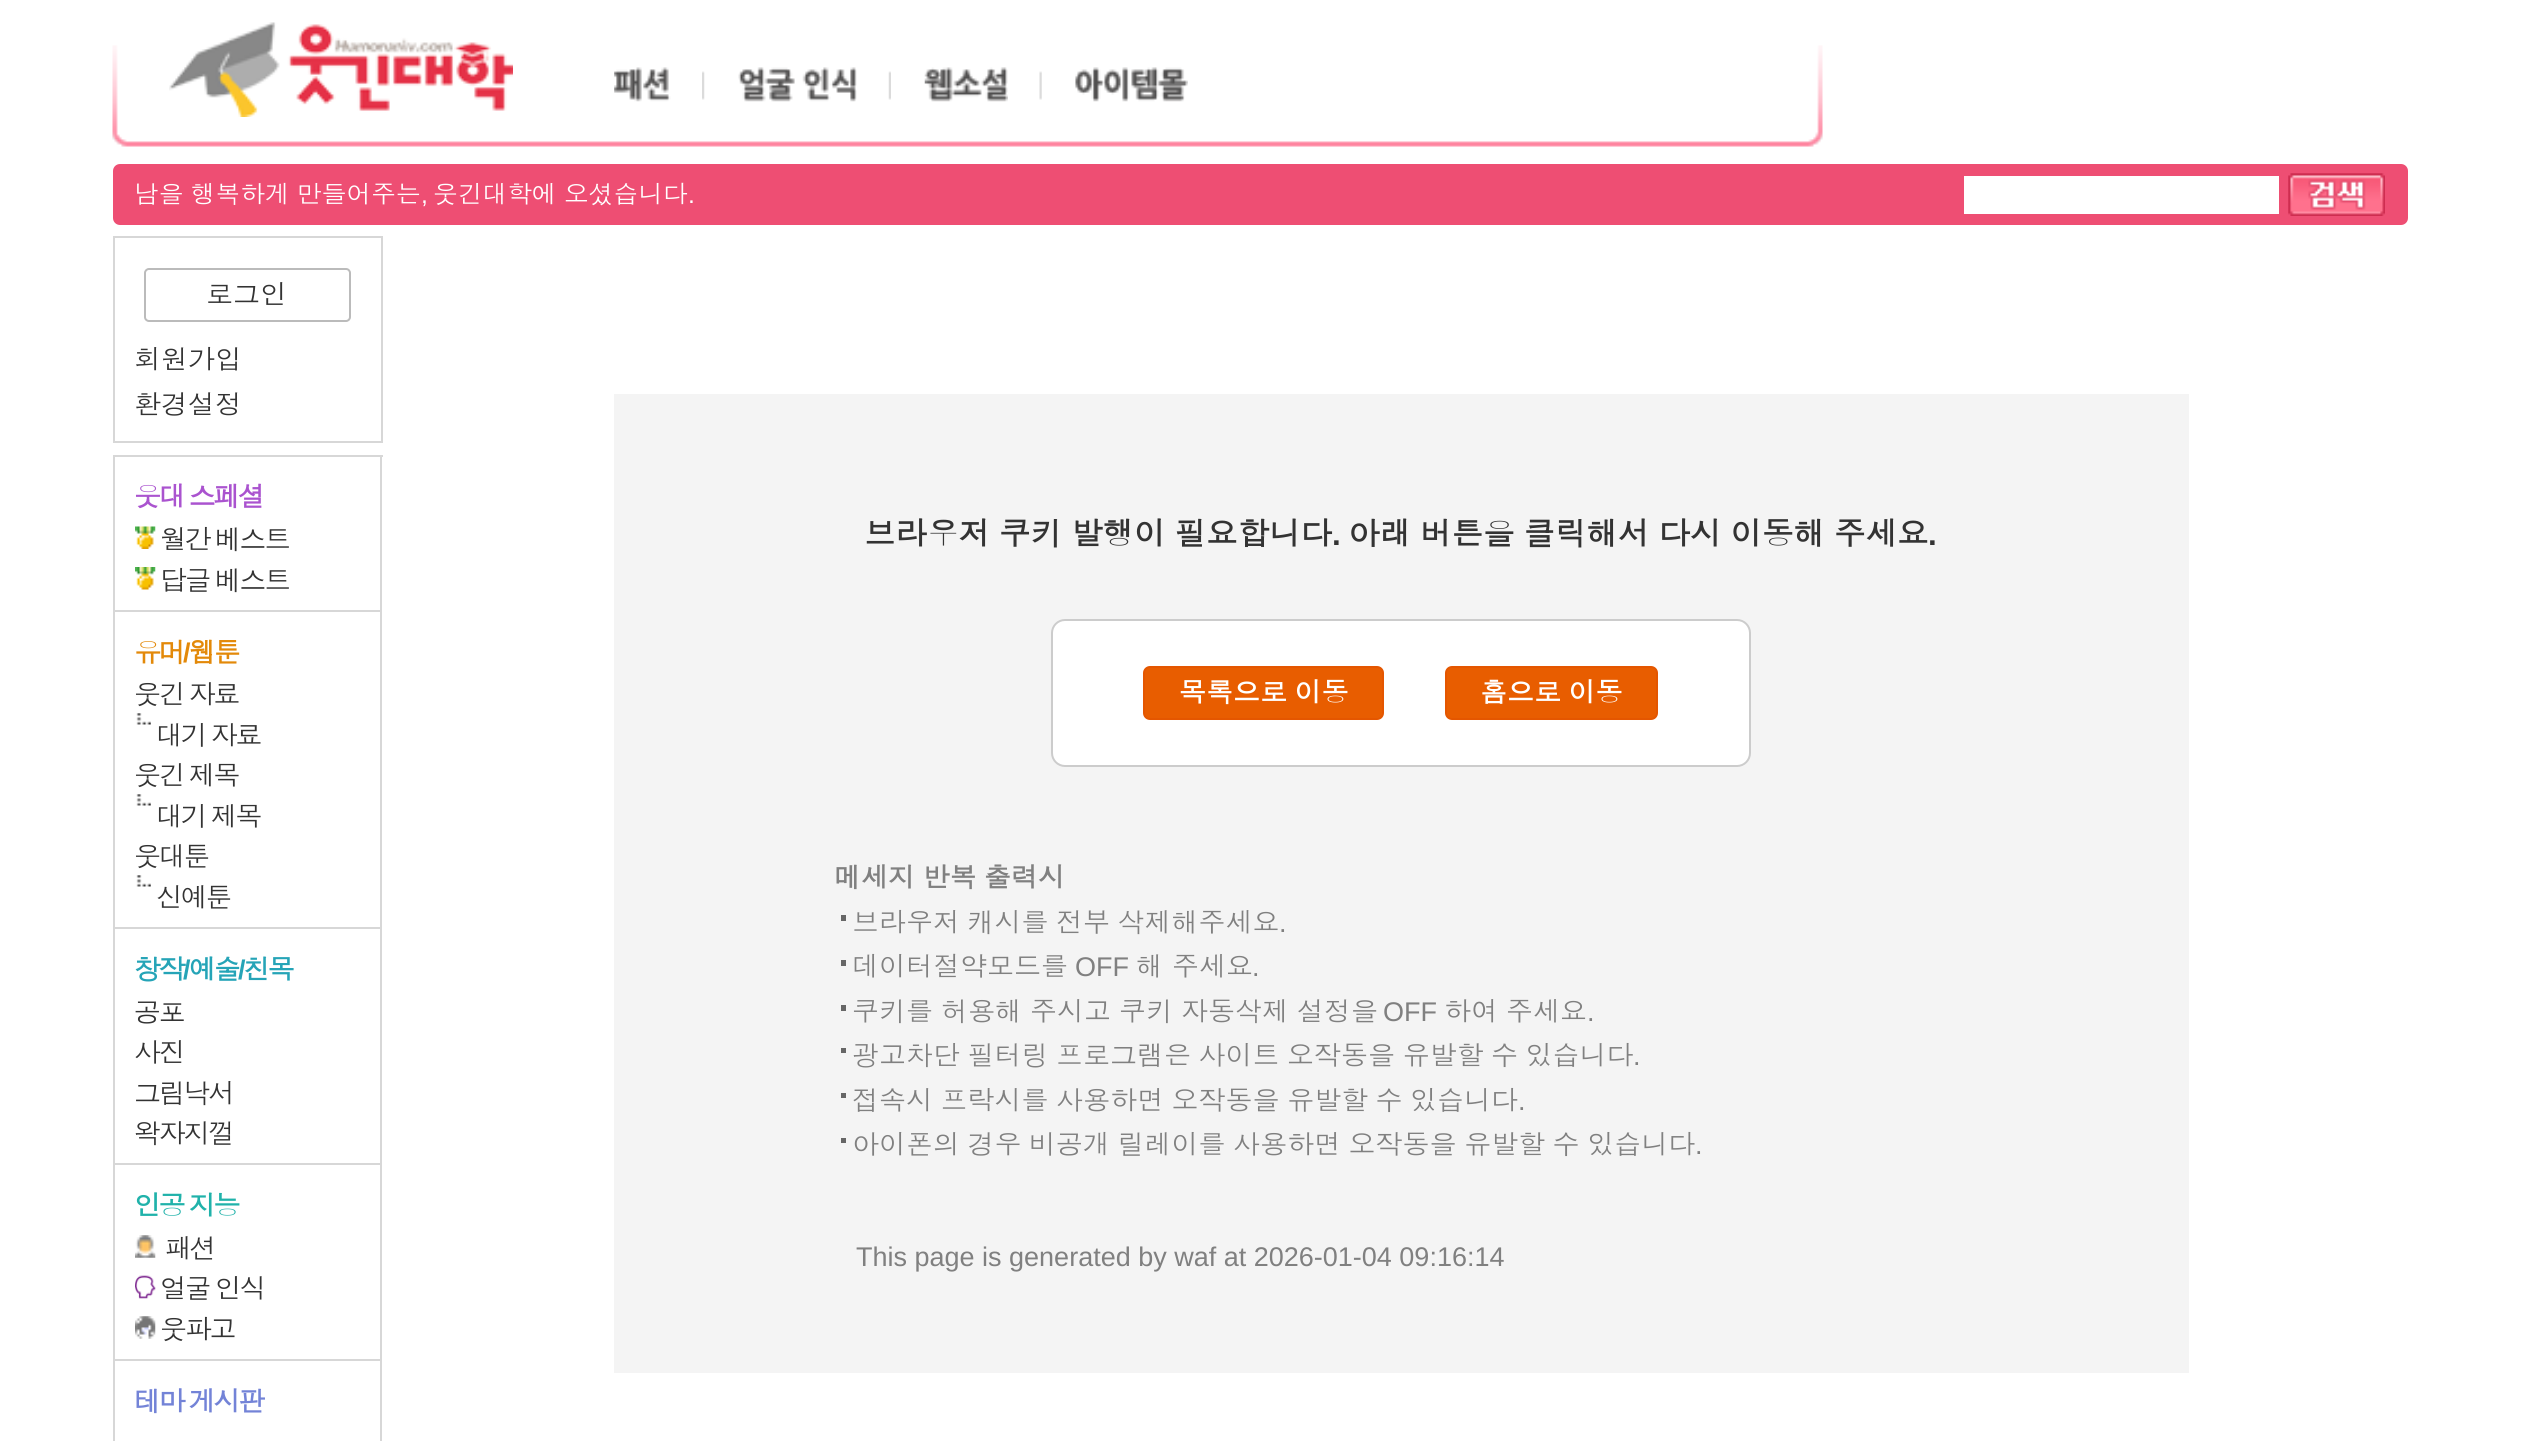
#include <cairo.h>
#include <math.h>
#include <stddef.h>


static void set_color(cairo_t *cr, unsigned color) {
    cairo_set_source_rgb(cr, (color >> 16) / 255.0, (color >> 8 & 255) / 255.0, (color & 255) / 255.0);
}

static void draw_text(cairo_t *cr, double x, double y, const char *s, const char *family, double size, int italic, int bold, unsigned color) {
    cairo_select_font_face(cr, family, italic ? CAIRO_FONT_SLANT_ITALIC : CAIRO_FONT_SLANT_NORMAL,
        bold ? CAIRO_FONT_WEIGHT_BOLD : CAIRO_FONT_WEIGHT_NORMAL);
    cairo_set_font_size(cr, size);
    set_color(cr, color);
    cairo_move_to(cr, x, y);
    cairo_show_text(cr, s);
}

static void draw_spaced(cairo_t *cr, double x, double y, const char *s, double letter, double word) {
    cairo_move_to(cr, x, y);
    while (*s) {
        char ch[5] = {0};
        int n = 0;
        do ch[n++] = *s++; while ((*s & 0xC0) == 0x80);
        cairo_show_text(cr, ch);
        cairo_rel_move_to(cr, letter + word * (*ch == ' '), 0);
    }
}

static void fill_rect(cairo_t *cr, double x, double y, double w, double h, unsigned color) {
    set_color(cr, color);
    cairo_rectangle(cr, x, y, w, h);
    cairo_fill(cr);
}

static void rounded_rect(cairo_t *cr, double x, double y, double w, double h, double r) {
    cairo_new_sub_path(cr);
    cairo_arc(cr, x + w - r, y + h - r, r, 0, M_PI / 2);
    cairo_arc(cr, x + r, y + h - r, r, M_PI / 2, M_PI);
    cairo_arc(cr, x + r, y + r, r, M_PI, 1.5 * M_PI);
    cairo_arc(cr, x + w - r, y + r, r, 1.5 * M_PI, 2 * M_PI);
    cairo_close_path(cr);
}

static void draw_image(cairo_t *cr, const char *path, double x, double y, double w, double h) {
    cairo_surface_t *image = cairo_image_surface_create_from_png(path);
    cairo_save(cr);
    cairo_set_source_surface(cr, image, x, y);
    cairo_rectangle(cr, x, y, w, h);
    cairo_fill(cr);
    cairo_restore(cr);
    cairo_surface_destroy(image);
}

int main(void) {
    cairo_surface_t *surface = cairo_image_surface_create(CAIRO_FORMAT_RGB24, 2525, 1441);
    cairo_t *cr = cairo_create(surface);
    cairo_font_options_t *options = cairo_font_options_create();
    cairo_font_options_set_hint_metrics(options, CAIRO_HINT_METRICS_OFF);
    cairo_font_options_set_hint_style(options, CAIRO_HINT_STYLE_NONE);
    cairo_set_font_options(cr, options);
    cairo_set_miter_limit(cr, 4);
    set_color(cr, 0xFFFFFF);
    cairo_paint(cr);
    draw_image(cr, "assets/img1.png", 112, 45, 1711, 102);
    draw_image(cr, "assets/img2.png", 169, 22, 344, 95);
    draw_image(cr, "assets/img3.png", 702, 71, 3, 29);
    draw_image(cr, "assets/img4.png", 614, 67, 57, 35);
    draw_image(cr, "assets/img5.png", 888, 71, 3, 29);
    draw_image(cr, "assets/img6.png", 738, 67, 119, 35);
    draw_image(cr, "assets/img7.png", 1039, 71, 3, 29);
    draw_image(cr, "assets/img8.png", 924, 67, 84, 35);
    draw_image(cr, "assets/img9.png", 1075, 67, 113, 35);
    set_color(cr, 0xEE4E73);
    rounded_rect(cr, 113, 164, 2295, 61, 7);
    cairo_fill(cr);
    cairo_select_font_face(cr, "Dotum", CAIRO_FONT_SLANT_NORMAL, CAIRO_FONT_WEIGHT_NORMAL);
    cairo_set_font_size(cr, 24.75);
    set_color(cr, 0xFFFFFF);
    draw_spaced(cr, 134, 203, "남을 행복하게 만들어주는", 0, -1);
    draw_text(cr, 421, 203, ",", "Liberation Sans", 24.75, 0, 0, 0xFFFFFF);
    cairo_select_font_face(cr, "Dotum", CAIRO_FONT_SLANT_NORMAL, CAIRO_FONT_WEIGHT_NORMAL);
    draw_spaced(cr, 433, 203, "웃긴대학에 오셨습니다", 0, -1);
    draw_text(cr, 688, 203, ".", "Liberation Sans", 24.75, 0, 0, 0xFFFFFF);
    fill_rect(cr, 1964, 176, 315, 38, 0xFFFFFF);
    draw_image(cr, "assets/img10.png", 2288, 173, 97, 43);
    cairo_rectangle(cr, 114, 237, 268, 205);
    set_color(cr, 0xD7D7D7);
    cairo_stroke(cr);
    rounded_rect(cr, 145, 269, 205, 52, 4);
    set_color(cr, 0xBBBBBB);
    cairo_stroke(cr);
    draw_text(cr, 206, 304, "로그인", "Dotum", 27, 0, 0, 0x333333);
    draw_text(cr, 134, 369, "회원가입", "Dotum", 27, 0, 0, 0x333333);
    draw_text(cr, 134, 414, "환경설정", "Dotum", 27, 0, 0, 0x333333);
    fill_rect(cr, 113, 455, 270, 2, 0xD7D7D7);
    fill_rect(cr, 380, 455, 2, 986, 0xD7D7D7);
    fill_rect(cr, 113, 455, 2, 986, 0xD7D7D7);
    fill_rect(cr, 115, 610, 265, 2, 0xD7D7D7);
    cairo_select_font_face(cr, "Dotum", CAIRO_FONT_SLANT_NORMAL, CAIRO_FONT_WEIGHT_BOLD);
    set_color(cr, 0xAA53CF);
    draw_spaced(cr, 134, 506, "웃대 스페셜", -2.25, -1.5);
    draw_image(cr, "assets/img11.png", 135, 526, 21, 23);
    cairo_select_font_face(cr, "Dotum", CAIRO_FONT_SLANT_NORMAL, CAIRO_FONT_WEIGHT_NORMAL);
    set_color(cr, 0x333333);
    draw_spaced(cr, 160, 549, "월간 베스트", -2.25, -1.5);
    draw_image(cr, "assets/img12.png", 135, 567, 21, 23);
    draw_spaced(cr, 160, 590, "답글 베스트", -2.25, -1.5);
    fill_rect(cr, 115, 927, 265, 2, 0xD7D7D7);
    cairo_select_font_face(cr, "Dotum", CAIRO_FONT_SLANT_NORMAL, CAIRO_FONT_WEIGHT_BOLD);
    set_color(cr, 0xE38909);
    draw_spaced(cr, 134, 662, "유머", -2.25, 0);
    cairo_select_font_face(cr, "Liberation Sans", CAIRO_FONT_SLANT_NORMAL, CAIRO_FONT_WEIGHT_BOLD);
    draw_spaced(cr, 183, 662, "/", -2.25, 0);
    cairo_select_font_face(cr, "Dotum", CAIRO_FONT_SLANT_NORMAL, CAIRO_FONT_WEIGHT_BOLD);
    draw_spaced(cr, 189, 662, "웹툰", -2.25, 0);
    cairo_select_font_face(cr, "Dotum", CAIRO_FONT_SLANT_NORMAL, CAIRO_FONT_WEIGHT_NORMAL);
    set_color(cr, 0x333333);
    draw_spaced(cr, 134, 704, "웃긴 자료", -2.25, -1.5);
    draw_image(cr, "assets/img13.png", 136, 713, 15, 12);
    draw_spaced(cr, 156, 745, "대기 자료", -2.25, -1.5);
    draw_spaced(cr, 134, 785, "웃긴 제목", -2.25, -1.5);
    draw_image(cr, "assets/img13.png", 136, 794, 15, 12);
    draw_spaced(cr, 156, 826, "대기 제목", -2.25, -1.5);
    draw_spaced(cr, 134, 866, "웃대툰", -2.25, 0);
    draw_image(cr, "assets/img13.png", 136, 875, 15, 12);
    draw_spaced(cr, 156, 907, "신예툰", -2.25, 0);
    fill_rect(cr, 115, 1163, 265, 2, 0xD7D7D7);
    cairo_select_font_face(cr, "Dotum", CAIRO_FONT_SLANT_NORMAL, CAIRO_FONT_WEIGHT_BOLD);
    set_color(cr, 0x25A4B7);
    draw_spaced(cr, 134, 979, "창작", -2.25, 0);
    cairo_select_font_face(cr, "Liberation Sans", CAIRO_FONT_SLANT_NORMAL, CAIRO_FONT_WEIGHT_BOLD);
    draw_spaced(cr, 183, 979, "/", -2.25, 0);
    cairo_select_font_face(cr, "Dotum", CAIRO_FONT_SLANT_NORMAL, CAIRO_FONT_WEIGHT_BOLD);
    draw_spaced(cr, 189, 979, "예술", -2.25, 0);
    cairo_select_font_face(cr, "Liberation Sans", CAIRO_FONT_SLANT_NORMAL, CAIRO_FONT_WEIGHT_BOLD);
    draw_spaced(cr, 238, 979, "/", -2.25, 0);
    cairo_select_font_face(cr, "Dotum", CAIRO_FONT_SLANT_NORMAL, CAIRO_FONT_WEIGHT_BOLD);
    draw_spaced(cr, 243, 979, "친목", -2.25, 0);
    cairo_select_font_face(cr, "Dotum", CAIRO_FONT_SLANT_NORMAL, CAIRO_FONT_WEIGHT_NORMAL);
    set_color(cr, 0x333333);
    draw_spaced(cr, 134, 1022, "공포", -2.25, 0);
    draw_spaced(cr, 134, 1062, "사진", -2.25, 0);
    draw_spaced(cr, 134, 1103, "그림낙서", -2.25, 0);
    draw_spaced(cr, 134, 1143, "왁자지껄", -2.25, 0);
    fill_rect(cr, 115, 1359, 265, 2, 0xD7D7D7);
    cairo_select_font_face(cr, "Dotum", CAIRO_FONT_SLANT_NORMAL, CAIRO_FONT_WEIGHT_BOLD);
    set_color(cr, 0x20B2AA);
    draw_spaced(cr, 134, 1215, "인공 지능", -2.25, -1.5);
    draw_image(cr, "assets/img14.png", 135, 1235, 21, 23);
    cairo_select_font_face(cr, "Dotum", CAIRO_FONT_SLANT_NORMAL, CAIRO_FONT_WEIGHT_NORMAL);
    set_color(cr, 0x333333);
    draw_spaced(cr, 165, 1258, "패션", -2.25, 0);
    draw_image(cr, "assets/img15.png", 135, 1275, 21, 24);
    draw_spaced(cr, 160, 1298, "얼굴 인식", -2.25, -1.5);
    draw_image(cr, "assets/img16.png", 135, 1316, 21, 23);
    draw_spaced(cr, 160, 1339, "웃파고", -2.25, 0);
    cairo_select_font_face(cr, "Dotum", CAIRO_FONT_SLANT_NORMAL, CAIRO_FONT_WEIGHT_BOLD);
    set_color(cr, 0x7383D7);
    draw_spaced(cr, 134, 1411, "테마 게시판", -2.25, -1.5);
    fill_rect(cr, 614, 394, 1575, 979, 0xF4F4F4);
    cairo_set_font_size(cr, 31.5);
    set_color(cr, 0x333333);
    draw_spaced(cr, 864, 545, "브라우저 쿠키 발행이 필요합니다", 0, -1.5);
    draw_text(cr, 1332, 545, ".", "Liberation Sans", 31.5, 0, 1, 0x333333);
    cairo_select_font_face(cr, "Dotum", CAIRO_FONT_SLANT_NORMAL, CAIRO_FONT_WEIGHT_BOLD);
    draw_spaced(cr, 1348, 545, "아래 버튼을 클릭해서 다시 이동해 주세요", 0, -1.5);
    draw_text(cr, 1928, 545, ".", "Liberation Sans", 31.5, 0, 1, 0x333333);
    set_color(cr, 0xFFFFFF);
    rounded_rect(cr, 1052, 620, 698, 146, 13);
    cairo_fill_preserve(cr);
    set_color(cr, 0xCCCCCC);
    cairo_stroke(cr);
    set_color(cr, 0xE85D00);
    rounded_rect(cr, 1144, 667, 239, 52, 6);
    cairo_fill_preserve(cr);
    set_color(cr, 0xE45600);
    cairo_stroke(cr);
    cairo_select_font_face(cr, "Dotum", CAIRO_FONT_SLANT_NORMAL, CAIRO_FONT_WEIGHT_BOLD);
    cairo_set_font_size(cr, 27);
    set_color(cr, 0xFFFFFF);
    draw_spaced(cr, 1179, 702, "목록으로 이동", 0, -1.5);
    set_color(cr, 0xE85D00);
    rounded_rect(cr, 1446, 667, 211, 52, 6);
    cairo_fill_preserve(cr);
    set_color(cr, 0xE45600);
    cairo_stroke(cr);
    set_color(cr, 0xFFFFFF);
    draw_spaced(cr, 1480, 702, "홈으로 이동", 0, -1.5);
    set_color(cr, 0x808080);
    draw_spaced(cr, 834, 887, "메세지 반복 출력시", 0, -1.5);
    fill_rect(cr, 841, 915, 5, 6, 0x666666);
    cairo_select_font_face(cr, "Dotum", CAIRO_FONT_SLANT_NORMAL, CAIRO_FONT_WEIGHT_NORMAL);
    set_color(cr, 0x808080);
    draw_spaced(cr, 852, 932, "브라우저 캐시를 전부 삭제해주세요", 0, -1.5);
    draw_text(cr, 1279, 932, ".", "Liberation Sans", 27, 0, 0, 0x808080);
    fill_rect(cr, 841, 960, 5, 6, 0x666666);
    draw_text(cr, 852, 976, "데이터절약모드를", "Dotum", 27, 0, 0, 0x808080);
    draw_text(cr, 1075, 976, "OFF", "Liberation Sans", 27, 0, 0, 0x808080);
    draw_text(cr, 1136, 976, "해 주세요", "Dotum", 27, 0, 0, 0x808080);
    draw_text(cr, 1252, 976, ".", "Liberation Sans", 27, 0, 0, 0x808080);
    fill_rect(cr, 841, 1005, 5, 6, 0x666666);
    cairo_select_font_face(cr, "Dotum", CAIRO_FONT_SLANT_NORMAL, CAIRO_FONT_WEIGHT_NORMAL);
    set_color(cr, 0x808080);
    draw_spaced(cr, 852, 1021, "쿠키를 허용해 주시고 쿠키 자동삭제 설정을", 0, -1);
    draw_text(cr, 1383, 1021, "OFF", "Liberation Sans", 27, 0, 0, 0x808080);
    cairo_select_font_face(cr, "Dotum", CAIRO_FONT_SLANT_NORMAL, CAIRO_FONT_WEIGHT_NORMAL);
    draw_spaced(cr, 1444, 1021, "하여 주세요", 0, -1);
    draw_text(cr, 1587, 1021, ".", "Liberation Sans", 27, 0, 0, 0x808080);
    fill_rect(cr, 841, 1048, 5, 5, 0x666666);
    cairo_select_font_face(cr, "Dotum", CAIRO_FONT_SLANT_NORMAL, CAIRO_FONT_WEIGHT_NORMAL);
    set_color(cr, 0x808080);
    draw_spaced(cr, 852, 1065, "광고차단 필터링 프로그램은 사이트 오작동을 유발할 수 있습니다", 0, -1.5);
    draw_text(cr, 1633, 1065, ".", "Liberation Sans", 27, 0, 0, 0x808080);
    fill_rect(cr, 841, 1093, 5, 5, 0x666666);
    cairo_select_font_face(cr, "Dotum", CAIRO_FONT_SLANT_NORMAL, CAIRO_FONT_WEIGHT_NORMAL);
    set_color(cr, 0x808080);
    draw_spaced(cr, 852, 1110, "접속시 프락시를 사용하면 오작동을 유발할 수 있습니다", 0, -1.5);
    draw_text(cr, 1518, 1110, ".", "Liberation Sans", 27, 0, 0, 0x808080);
    fill_rect(cr, 841, 1138, 5, 5, 0x666666);
    cairo_select_font_face(cr, "Dotum", CAIRO_FONT_SLANT_NORMAL, CAIRO_FONT_WEIGHT_NORMAL);
    set_color(cr, 0x808080);
    draw_spaced(cr, 852, 1154, "아이폰의 경우 비공개 릴레이를 사용하면 오작동을 유발할 수 있습니다", 0, -1.5);
    draw_text(cr, 1695, 1154, ".", "Liberation Sans", 27, 0, 0, 0x808080);
    draw_text(cr, 856, 1266, "This page is generated by waf at 2026-01-04 09:16:14", "Liberation Sans", 27, 0, 0, 0x808080);
    cairo_surface_write_to_png(surface, "output.png");
    cairo_font_options_destroy(options);
    cairo_destroy(cr);
    cairo_surface_destroy(surface);
    return 0;
}
